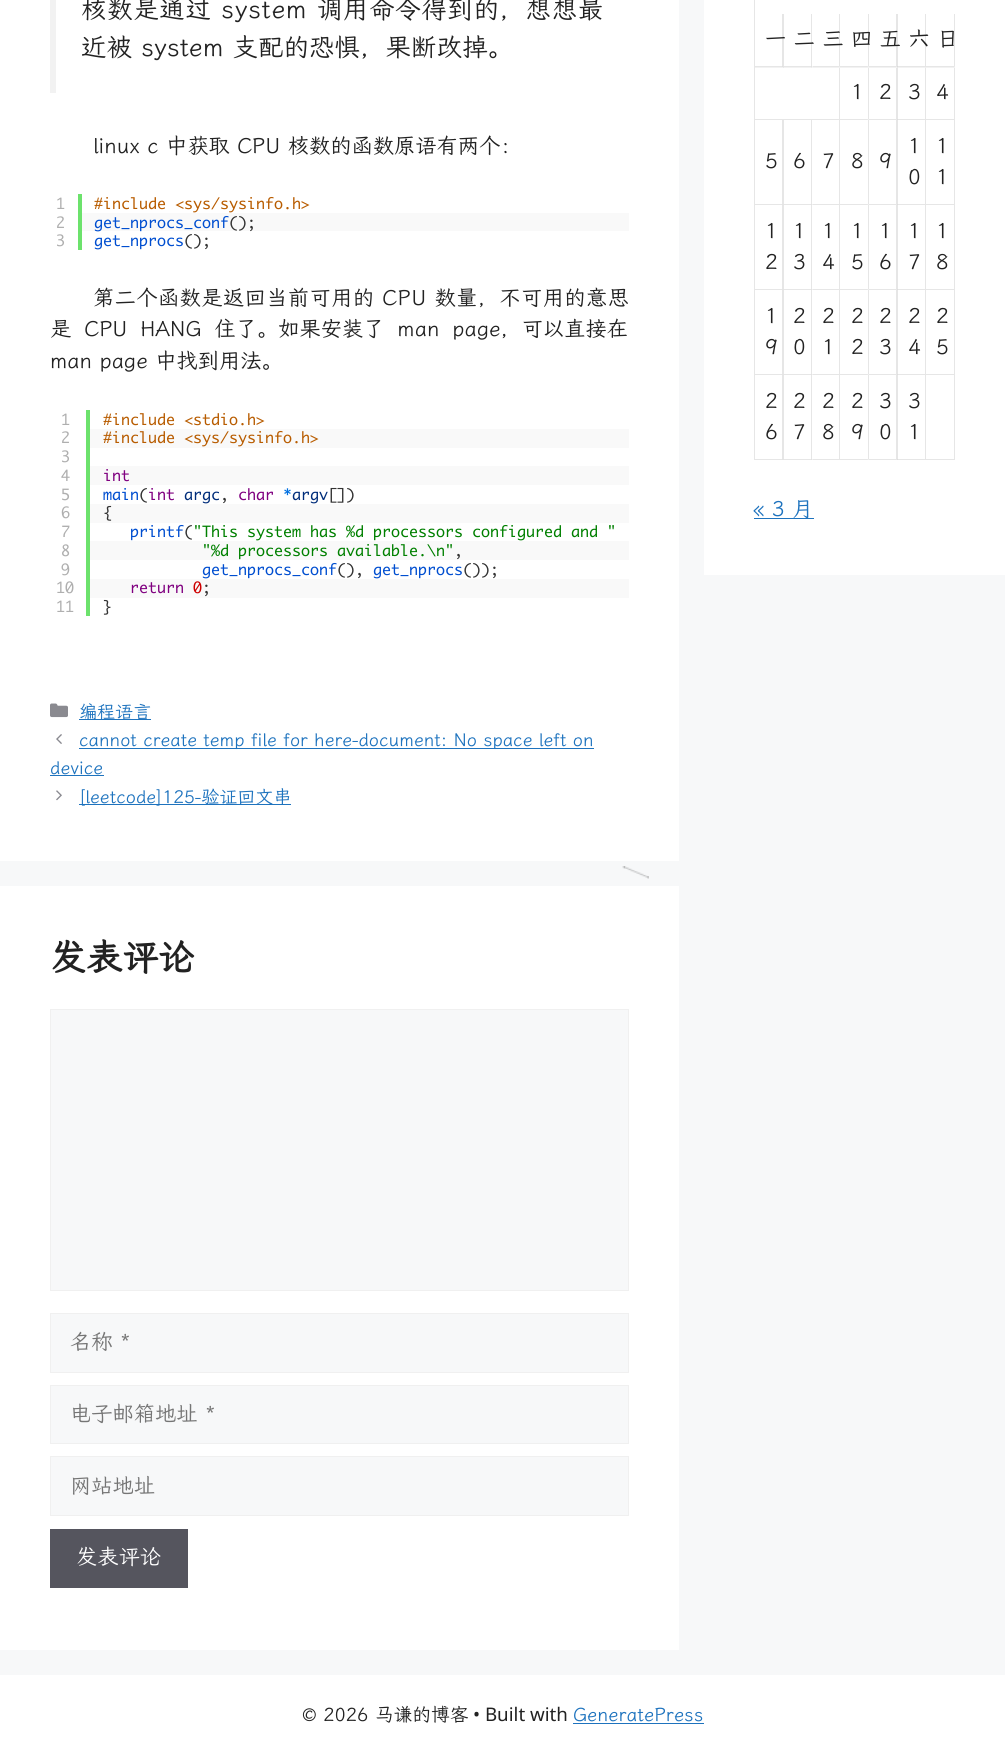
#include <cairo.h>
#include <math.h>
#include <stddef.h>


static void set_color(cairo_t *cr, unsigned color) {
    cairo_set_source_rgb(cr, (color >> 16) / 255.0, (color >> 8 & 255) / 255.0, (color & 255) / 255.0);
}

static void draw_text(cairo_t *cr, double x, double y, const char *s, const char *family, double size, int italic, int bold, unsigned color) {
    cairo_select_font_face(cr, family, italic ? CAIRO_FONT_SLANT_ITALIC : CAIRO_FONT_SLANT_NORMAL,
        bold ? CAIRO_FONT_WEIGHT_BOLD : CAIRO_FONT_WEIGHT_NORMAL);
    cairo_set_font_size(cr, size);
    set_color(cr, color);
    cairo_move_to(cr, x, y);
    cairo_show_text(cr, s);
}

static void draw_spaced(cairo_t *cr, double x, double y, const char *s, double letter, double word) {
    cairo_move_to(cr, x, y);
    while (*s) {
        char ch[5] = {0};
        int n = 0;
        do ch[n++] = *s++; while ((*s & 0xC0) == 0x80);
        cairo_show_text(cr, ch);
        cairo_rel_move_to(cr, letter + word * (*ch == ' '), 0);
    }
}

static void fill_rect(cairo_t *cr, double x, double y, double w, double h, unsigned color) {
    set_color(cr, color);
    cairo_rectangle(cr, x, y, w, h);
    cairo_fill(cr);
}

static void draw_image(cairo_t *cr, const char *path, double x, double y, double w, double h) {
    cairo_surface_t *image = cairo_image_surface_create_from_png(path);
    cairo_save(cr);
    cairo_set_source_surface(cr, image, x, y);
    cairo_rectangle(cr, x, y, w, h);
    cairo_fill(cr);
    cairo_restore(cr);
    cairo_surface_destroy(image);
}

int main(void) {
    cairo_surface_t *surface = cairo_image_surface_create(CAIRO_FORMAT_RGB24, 1005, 1754);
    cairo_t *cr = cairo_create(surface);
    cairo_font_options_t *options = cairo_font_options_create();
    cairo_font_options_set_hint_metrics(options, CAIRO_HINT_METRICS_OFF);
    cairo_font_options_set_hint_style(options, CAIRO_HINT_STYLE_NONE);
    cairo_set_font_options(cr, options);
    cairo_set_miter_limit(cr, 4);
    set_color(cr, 0xF7F8F9);
    cairo_paint(cr);
    fill_rect(cr, 0, 0, 679, 861, 0xFFFFFF);
    fill_rect(cr, 50, 0, 6, 93, 0xF2F2F2);
    cairo_select_font_face(cr, "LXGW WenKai", CAIRO_FONT_SLANT_NORMAL, CAIRO_FONT_WEIGHT_NORMAL);
    cairo_set_font_size(cr, 25.5);
    set_color(cr, 0x222222);
    draw_spaced(cr, 81, 18, "核数是通过 system 调用命令得到的，想想最", 0.6, 0);
    draw_text(cr, 81, 56, "近被 system 支配的恐惧，果断改掉。", "LXGW WenKai", 25.5, 0, 0, 0x222222);
    draw_text(cr, 93, 153, "linux c 中获取 CPU 核数的函数原语有两个：", "LXGW WenKai", 21.25, 0, 0, 0x222222);
    fill_rect(cr, 78, 194, 4, 56, 0x6CE26C);
    draw_text(cr, 56, 209, "1", "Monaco", 15, 0, 0, 0xAFAFAF);
    draw_text(cr, 56, 228, "2", "Monaco", 15, 0, 0, 0xAFAFAF);
    draw_text(cr, 56, 246, "3", "Monaco", 15, 0, 0, 0xAFAFAF);
    draw_text(cr, 94, 209, "#include <sys/sysinfo.h>", "Monaco", 15, 0, 0, 0xB85C00);
    fill_rect(cr, 82, 213, 547, 18, 0xF9F9F9);
    draw_text(cr, 94, 228, "get_nprocs_conf", "Monaco", 15, 0, 0, 0x004ED0);
    draw_text(cr, 229, 228, "();", "Monaco", 15, 0, 0, 0x333333);
    draw_text(cr, 94, 246, "get_nprocs", "Monaco", 15, 0, 0, 0x004ED0);
    draw_text(cr, 184, 246, "();", "Monaco", 15, 0, 0, 0x333333);
    cairo_select_font_face(cr, "LXGW WenKai", CAIRO_FONT_SLANT_NORMAL, CAIRO_FONT_WEIGHT_NORMAL);
    cairo_set_font_size(cr, 21.25);
    set_color(cr, 0x222222);
    draw_spaced(cr, 93, 305, "第二个函数是返回当前可用的 CPU 数量，不可用的意思", 0.4, 0);
    draw_spaced(cr, 50, 336, "是 CPU HANG 住了。如果安装了 man page，可以直接在", 0, 5.5);
    draw_text(cr, 50, 368, "man page 中找到用法。", "LXGW WenKai", 21.25, 0, 0, 0x222222);
    fill_rect(cr, 86, 410, 4, 206, 0x6CE26C);
    draw_text(cr, 61, 425, "1", "Monaco", 15, 0, 0, 0xAFAFAF);
    draw_text(cr, 61, 443, "2", "Monaco", 15, 0, 0, 0xAFAFAF);
    draw_text(cr, 61, 462, "3", "Monaco", 15, 0, 0, 0xAFAFAF);
    draw_text(cr, 61, 481, "4", "Monaco", 15, 0, 0, 0xAFAFAF);
    draw_text(cr, 61, 500, "5", "Monaco", 15, 0, 0, 0xAFAFAF);
    draw_text(cr, 61, 518, "6", "Monaco", 15, 0, 0, 0xAFAFAF);
    draw_text(cr, 61, 537, "7", "Monaco", 15, 0, 0, 0xAFAFAF);
    draw_text(cr, 61, 556, "8", "Monaco", 15, 0, 0, 0xAFAFAF);
    draw_text(cr, 61, 575, "9", "Monaco", 15, 0, 0, 0xAFAFAF);
    draw_text(cr, 56, 593, "10", "Monaco", 15, 0, 0, 0xAFAFAF);
    draw_text(cr, 56, 612, "11", "Monaco", 15, 0, 0, 0xAFAFAF);
    draw_text(cr, 103, 425, "#include <stdio.h>", "Monaco", 15, 0, 0, 0xB85C00);
    fill_rect(cr, 90, 429, 539, 19, 0xF9F9F9);
    draw_text(cr, 103, 443, "#include <sys/sysinfo.h>", "Monaco", 15, 0, 0, 0xB85C00);
    fill_rect(cr, 90, 466, 539, 19, 0xF9F9F9);
    draw_text(cr, 103, 481, "int", "Monaco", 15, 0, 0, 0x800080);
    draw_text(cr, 103, 500, "main", "Monaco", 15, 0, 0, 0x004ED0);
    draw_text(cr, 139, 500, "(", "Monaco", 15, 0, 0, 0x333333);
    draw_text(cr, 148, 500, "int", "Monaco", 15, 0, 0, 0x800080);
    draw_text(cr, 184, 500, "argc", "Monaco", 15, 0, 0, 0x002D7A);
    draw_text(cr, 220, 500, ",", "Monaco", 15, 0, 0, 0x333333);
    draw_text(cr, 238, 500, "char", "Monaco", 15, 0, 0, 0x800080);
    draw_text(cr, 283, 500, "*", "Monaco", 15, 0, 0, 0x006FE0);
    draw_text(cr, 292, 500, "argv", "Monaco", 15, 0, 0, 0x002D7A);
    draw_text(cr, 328, 500, "[])", "Monaco", 15, 0, 0, 0x333333);
    fill_rect(cr, 90, 504, 539, 19, 0xF9F9F9);
    draw_text(cr, 103, 518, "{", "Monaco", 15, 0, 0, 0x333333);
    draw_text(cr, 130, 537, "printf", "Monaco", 15, 0, 0, 0x004ED0);
    draw_text(cr, 184, 537, "(", "Monaco", 15, 0, 0, 0x333333);
    draw_text(cr, 193, 537, "\"This system has %d processors configured and \"", "Monaco", 15, 0, 0, 0x008000);
    fill_rect(cr, 90, 541, 539, 19, 0xF9F9F9);
    draw_text(cr, 202, 556, "\"%d processors available.\\n\"", "Monaco", 15, 0, 0, 0x008000);
    draw_text(cr, 454, 556, ",", "Monaco", 15, 0, 0, 0x333333);
    draw_text(cr, 202, 575, "get_nprocs_conf", "Monaco", 15, 0, 0, 0x004ED0);
    draw_text(cr, 337, 575, "(),", "Monaco", 15, 0, 0, 0x333333);
    draw_text(cr, 373, 575, "get_nprocs", "Monaco", 15, 0, 0, 0x004ED0);
    draw_text(cr, 463, 575, "());", "Monaco", 15, 0, 0, 0x333333);
    fill_rect(cr, 90, 579, 539, 19, 0xF9F9F9);
    draw_text(cr, 130, 593, "return", "Monaco", 15, 0, 0, 0x800080);
    draw_text(cr, 193, 593, "0", "Monaco", 15, 0, 0, 0xCE0000);
    draw_text(cr, 202, 593, ";", "Monaco", 15, 0, 0, 0x333333);
    draw_text(cr, 103, 612, "}", "Monaco", 15, 0, 0, 0x333333);
    draw_image(cr, "assets/img1.png", 50, 703, 18, 15);
    fill_rect(cr, 79, 719, 72, 1, 0x1E73BE);
    draw_text(cr, 79, 718, "编程语言", "LXGW WenKai", 18.05, 0, 0, 0x1E73BE);
    draw_image(cr, "assets/img2.png", 56, 734, 6, 10);
    fill_rect(cr, 79, 748, 515, 1, 0x1E73BE);
    draw_text(cr, 79, 746, "cannot create temp file for here-document: No space left on", "LXGW WenKai", 18.05, 0, 0, 0x1E73BE);
    draw_text(cr, 50, 774, "device", "LXGW WenKai", 18.05, 0, 0, 0x1E73BE);
    fill_rect(cr, 50, 775, 54, 1, 0x1E73BE);
    draw_image(cr, "assets/img3.png", 56, 790, 6, 11);
    fill_rect(cr, 79, 804, 212, 1, 0x1E73BE);
    draw_text(cr, 79, 803, "[leetcode]125-验证回文串", "LXGW WenKai", 18.05, 0, 0, 0x1E73BE);
    fill_rect(cr, 0, 886, 679, 764, 0xFFFFFF);
    draw_text(cr, 50, 970, "发表评论", "LXGW WenKai", 36, 0, 1, 0x222222);
    set_color(cr, 0xF7F8F9);
    cairo_rectangle(cr, 50.5, 1009.5, 578, 281);
    cairo_fill_preserve(cr);
    set_color(cr, 0xF0F0F0);
    cairo_set_line_width(cr, 1);
    cairo_stroke(cr);
    set_color(cr, 0xF7F8F9);
    cairo_rectangle(cr, 50.5, 1313.5, 578, 59);
    cairo_fill_preserve(cr);
    set_color(cr, 0xF0F0F0);
    cairo_stroke(cr);
    draw_text(cr, 70, 1349, "名称 *", "LXGW WenKai", 21.25, 0, 0, 0x757575);
    set_color(cr, 0xF7F8F9);
    cairo_rectangle(cr, 50.5, 1385.5, 578, 58);
    cairo_fill_preserve(cr);
    set_color(cr, 0xF0F0F0);
    cairo_stroke(cr);
    draw_text(cr, 70, 1421, "电子邮箱地址 *", "LXGW WenKai", 21.25, 0, 0, 0x757575);
    set_color(cr, 0xF7F8F9);
    cairo_rectangle(cr, 50.5, 1456.5, 578, 59);
    cairo_fill_preserve(cr);
    set_color(cr, 0xF0F0F0);
    cairo_stroke(cr);
    draw_text(cr, 70, 1493, "网站地址", "LXGW WenKai", 21.25, 0, 0, 0x757575);
    fill_rect(cr, 50, 1529, 138, 59, 0x55555E);
    draw_text(cr, 76, 1564, "发表评论", "LXGW WenKai", 21.25, 0, 0, 0xFFFFFF);
    fill_rect(cr, 704, 0, 301, 575, 0xFFFFFF);
    set_color(cr, 0xE6E6E6);
    cairo_new_path(cr);
    cairo_move_to(cr, 754, 460);
    cairo_line_to(cr, 754, -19);
    cairo_line_to(cr, 755, -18);
    cairo_line_to(cr, 755, 460);
    cairo_close_path(cr);
    cairo_fill(cr);
    cairo_new_path(cr);
    cairo_move_to(cr, 812, 14);
    cairo_line_to(cr, 812, 68);
    cairo_line_to(cr, 811, 66);
    cairo_line_to(cr, 811, 14);
    cairo_close_path(cr);
    cairo_fill(cr);
    cairo_set_source_rgba(cr, 0, 0, 0, 0.1);
    cairo_new_path(cr);
    cairo_move_to(cr, 812.5, 67.5);
    cairo_line_to(cr, 784, 67.5);
    cairo_line_to(cr, 784, 66);
    cairo_line_to(cr, 811, 66);
    cairo_close_path(cr);
    cairo_fill(cr);
    set_color(cr, 0xE6E6E6);
    cairo_new_path(cr);
    cairo_move_to(cr, 840, 14);
    cairo_line_to(cr, 840, 68);
    cairo_line_to(cr, 839, 66);
    cairo_line_to(cr, 839, 14);
    cairo_close_path(cr);
    cairo_fill(cr);
    cairo_new_path(cr);
    cairo_move_to(cr, 840, 67.5);
    cairo_line_to(cr, 812.5, 67.5);
    cairo_line_to(cr, 812.5, 66);
    cairo_line_to(cr, 839, 66);
    cairo_close_path(cr);
    cairo_move_to(cr, 869, 14);
    cairo_line_to(cr, 869, 68);
    cairo_line_to(cr, 868, 66);
    cairo_line_to(cr, 868, 14);
    cairo_close_path(cr);
    cairo_fill(cr);
    cairo_new_path(cr);
    cairo_move_to(cr, 869, 67.5);
    cairo_line_to(cr, 840, 67.5);
    cairo_line_to(cr, 840, 66);
    cairo_line_to(cr, 867.5, 66);
    cairo_close_path(cr);
    cairo_move_to(cr, 898, 14);
    cairo_line_to(cr, 898, 68);
    cairo_line_to(cr, 896, 66);
    cairo_line_to(cr, 896, 14);
    cairo_close_path(cr);
    cairo_fill(cr);
    cairo_new_path(cr);
    cairo_move_to(cr, 926, 14);
    cairo_line_to(cr, 926, 68);
    cairo_line_to(cr, 925, 66);
    cairo_line_to(cr, 925, 14);
    cairo_close_path(cr);
    cairo_fill(cr);
    cairo_set_source_rgba(cr, 0, 0, 0, 0.1);
    cairo_new_path(cr);
    cairo_move_to(cr, 897.5, 67.5);
    cairo_line_to(cr, 869, 67.5);
    cairo_line_to(cr, 869, 66);
    cairo_line_to(cr, 896, 66);
    cairo_close_path(cr);
    cairo_fill(cr);
    cairo_new_path(cr);
    cairo_move_to(cr, 926, 67.5);
    cairo_line_to(cr, 897.5, 67.5);
    cairo_line_to(cr, 897.5, 66);
    cairo_line_to(cr, 925, 66);
    cairo_close_path(cr);
    cairo_fill(cr);
    set_color(cr, 0xE6E6E6);
    cairo_new_path(cr);
    cairo_move_to(cr, 955, 14);
    cairo_line_to(cr, 955, 68);
    cairo_line_to(cr, 954, 66);
    cairo_line_to(cr, 954, 14);
    cairo_close_path(cr);
    cairo_fill(cr);
    cairo_new_path(cr);
    cairo_move_to(cr, 955, 67.5);
    cairo_line_to(cr, 926, 67.5);
    cairo_line_to(cr, 926, 66);
    cairo_line_to(cr, 954, 66);
    cairo_close_path(cr);
    cairo_fill(cr);
    cairo_new_path(cr);
    cairo_move_to(cr, 784, 14);
    cairo_line_to(cr, 784, 68);
    cairo_line_to(cr, 782, 66);
    cairo_line_to(cr, 782, 14);
    cairo_close_path(cr);
    cairo_fill(cr);
    cairo_set_source_rgba(cr, 0, 0, 0, 0.1);
    cairo_new_path(cr);
    cairo_move_to(cr, 784, 67.5);
    cairo_line_to(cr, 755, 67.5);
    cairo_line_to(cr, 755, 66);
    cairo_line_to(cr, 782.5, 66);
    cairo_close_path(cr);
    cairo_fill(cr);
    draw_text(cr, 765, 46, "一 二 三 四 五 六 日", "LXGW WenKai", 21.25, 0, 0, 0x222222);
    set_color(cr, 0xE6E6E6);
    cairo_new_path(cr);
    cairo_move_to(cr, 840, 68);
    cairo_line_to(cr, 840, 120);
    cairo_line_to(cr, 839, 119);
    cairo_line_to(cr, 839, 68);
    cairo_close_path(cr);
    cairo_fill(cr);
    cairo_set_source_rgba(cr, 0, 0, 0, 0.1);
    cairo_new_path(cr);
    cairo_move_to(cr, 840, 120);
    cairo_line_to(cr, 755, 120);
    cairo_line_to(cr, 755, 119);
    cairo_line_to(cr, 839, 119);
    cairo_close_path(cr);
    cairo_fill(cr);
    set_color(cr, 0xE6E6E6);
    cairo_new_path(cr);
    cairo_move_to(cr, 869, 68);
    cairo_line_to(cr, 869, 120);
    cairo_line_to(cr, 868, 119);
    cairo_line_to(cr, 868, 68);
    cairo_close_path(cr);
    cairo_fill(cr);
    cairo_new_path(cr);
    cairo_move_to(cr, 869, 120);
    cairo_line_to(cr, 840, 120);
    cairo_line_to(cr, 840, 119);
    cairo_line_to(cr, 867.5, 119);
    cairo_close_path(cr);
    cairo_move_to(cr, 898, 68);
    cairo_line_to(cr, 898, 120);
    cairo_line_to(cr, 896, 119);
    cairo_line_to(cr, 896, 68);
    cairo_close_path(cr);
    cairo_fill(cr);
    draw_text(cr, 851, 99, "1", "LXGW WenKai", 21.25, 0, 0, 0x222222);
    cairo_set_source_rgba(cr, 0, 0, 0, 0.1);
    cairo_new_path(cr);
    cairo_move_to(cr, 897.5, 120);
    cairo_line_to(cr, 869, 120);
    cairo_line_to(cr, 869, 119);
    cairo_line_to(cr, 896, 119);
    cairo_close_path(cr);
    cairo_fill(cr);
    draw_text(cr, 879, 99, "2", "LXGW WenKai", 21.25, 0, 0, 0x222222);
    set_color(cr, 0xE6E6E6);
    cairo_new_path(cr);
    cairo_move_to(cr, 926, 68);
    cairo_line_to(cr, 926, 120);
    cairo_line_to(cr, 925, 119);
    cairo_line_to(cr, 925, 68);
    cairo_close_path(cr);
    cairo_fill(cr);
    cairo_set_source_rgba(cr, 0, 0, 0, 0.1);
    cairo_new_path(cr);
    cairo_move_to(cr, 926, 120);
    cairo_line_to(cr, 897.5, 120);
    cairo_line_to(cr, 897.5, 119);
    cairo_line_to(cr, 925, 119);
    cairo_close_path(cr);
    cairo_fill(cr);
    draw_text(cr, 908, 99, "3", "LXGW WenKai", 21.25, 0, 0, 0x222222);
    set_color(cr, 0xE6E6E6);
    cairo_new_path(cr);
    cairo_move_to(cr, 955, 68);
    cairo_line_to(cr, 955, 120);
    cairo_line_to(cr, 954, 119);
    cairo_line_to(cr, 954, 68);
    cairo_close_path(cr);
    cairo_fill(cr);
    cairo_set_source_rgba(cr, 0, 0, 0, 0.1);
    cairo_new_path(cr);
    cairo_move_to(cr, 955, 120);
    cairo_line_to(cr, 926, 120);
    cairo_line_to(cr, 926, 119);
    cairo_line_to(cr, 954, 119);
    cairo_close_path(cr);
    cairo_fill(cr);
    draw_text(cr, 936, 99, "4", "LXGW WenKai", 21.25, 0, 0, 0x222222);
    set_color(cr, 0xE6E6E6);
    cairo_new_path(cr);
    cairo_move_to(cr, 784, 120);
    cairo_line_to(cr, 784, 205);
    cairo_line_to(cr, 782, 204);
    cairo_line_to(cr, 782, 120);
    cairo_close_path(cr);
    cairo_fill(cr);
    cairo_set_source_rgba(cr, 0, 0, 0, 0.1);
    cairo_new_path(cr);
    cairo_move_to(cr, 784, 205);
    cairo_line_to(cr, 755, 205);
    cairo_line_to(cr, 755, 204);
    cairo_line_to(cr, 782.5, 204);
    cairo_close_path(cr);
    cairo_fill(cr);
    draw_text(cr, 765, 168, "5", "LXGW WenKai", 21.25, 0, 0, 0x222222);
    set_color(cr, 0xE6E6E6);
    cairo_new_path(cr);
    cairo_move_to(cr, 812, 120);
    cairo_line_to(cr, 812, 205);
    cairo_line_to(cr, 811, 204);
    cairo_line_to(cr, 811, 120);
    cairo_close_path(cr);
    cairo_fill(cr);
    cairo_set_source_rgba(cr, 0, 0, 0, 0.1);
    cairo_new_path(cr);
    cairo_move_to(cr, 812.5, 205);
    cairo_line_to(cr, 784, 205);
    cairo_line_to(cr, 784, 204);
    cairo_line_to(cr, 811, 204);
    cairo_close_path(cr);
    cairo_fill(cr);
    draw_text(cr, 793, 168, "6", "LXGW WenKai", 21.25, 0, 0, 0x222222);
    set_color(cr, 0xE6E6E6);
    cairo_new_path(cr);
    cairo_move_to(cr, 840, 120);
    cairo_line_to(cr, 840, 205);
    cairo_line_to(cr, 839, 204);
    cairo_line_to(cr, 839, 120);
    cairo_close_path(cr);
    cairo_fill(cr);
    cairo_set_source_rgba(cr, 0, 0, 0, 0.1);
    cairo_new_path(cr);
    cairo_move_to(cr, 840, 205);
    cairo_line_to(cr, 812.5, 205);
    cairo_line_to(cr, 812.5, 204);
    cairo_line_to(cr, 839, 204);
    cairo_close_path(cr);
    cairo_fill(cr);
    draw_text(cr, 822, 168, "7", "LXGW WenKai", 21.25, 0, 0, 0x222222);
    set_color(cr, 0xE6E6E6);
    cairo_new_path(cr);
    cairo_move_to(cr, 869, 120);
    cairo_line_to(cr, 869, 205);
    cairo_line_to(cr, 868, 204);
    cairo_line_to(cr, 868, 120);
    cairo_close_path(cr);
    cairo_fill(cr);
    cairo_new_path(cr);
    cairo_move_to(cr, 869, 205);
    cairo_line_to(cr, 840, 205);
    cairo_line_to(cr, 840, 204);
    cairo_line_to(cr, 867.5, 204);
    cairo_close_path(cr);
    cairo_fill(cr);
    draw_text(cr, 851, 168, "8", "LXGW WenKai", 21.25, 0, 0, 0x222222);
    set_color(cr, 0xE6E6E6);
    cairo_new_path(cr);
    cairo_move_to(cr, 898, 120);
    cairo_line_to(cr, 898, 205);
    cairo_line_to(cr, 896, 204);
    cairo_line_to(cr, 896, 120);
    cairo_close_path(cr);
    cairo_fill(cr);
    cairo_set_source_rgba(cr, 0, 0, 0, 0.1);
    cairo_new_path(cr);
    cairo_move_to(cr, 897.5, 205);
    cairo_line_to(cr, 869, 205);
    cairo_line_to(cr, 869, 204);
    cairo_line_to(cr, 896, 204);
    cairo_close_path(cr);
    cairo_fill(cr);
    draw_text(cr, 879, 168, "9", "LXGW WenKai", 21.25, 0, 0, 0x222222);
    set_color(cr, 0xE6E6E6);
    cairo_new_path(cr);
    cairo_move_to(cr, 926, 120);
    cairo_line_to(cr, 926, 205);
    cairo_line_to(cr, 925, 204);
    cairo_line_to(cr, 925, 120);
    cairo_close_path(cr);
    cairo_fill(cr);
    cairo_set_source_rgba(cr, 0, 0, 0, 0.1);
    cairo_new_path(cr);
    cairo_move_to(cr, 926, 205);
    cairo_line_to(cr, 897.5, 205);
    cairo_line_to(cr, 897.5, 204);
    cairo_line_to(cr, 925, 204);
    cairo_close_path(cr);
    cairo_fill(cr);
    draw_text(cr, 908, 153, "1", "LXGW WenKai", 21.25, 0, 0, 0x222222);
    draw_text(cr, 908, 184, "0", "LXGW WenKai", 21.25, 0, 0, 0x222222);
    set_color(cr, 0xE6E6E6);
    cairo_new_path(cr);
    cairo_move_to(cr, 955, 120);
    cairo_line_to(cr, 955, 205);
    cairo_line_to(cr, 954, 204);
    cairo_line_to(cr, 954, 120);
    cairo_close_path(cr);
    cairo_fill(cr);
    cairo_set_source_rgba(cr, 0, 0, 0, 0.1);
    cairo_new_path(cr);
    cairo_move_to(cr, 955, 205);
    cairo_line_to(cr, 926, 205);
    cairo_line_to(cr, 926, 204);
    cairo_line_to(cr, 954, 204);
    cairo_close_path(cr);
    cairo_fill(cr);
    draw_text(cr, 936, 153, "1", "LXGW WenKai", 21.25, 0, 0, 0x222222);
    draw_text(cr, 936, 184, "1", "LXGW WenKai", 21.25, 0, 0, 0x222222);
    set_color(cr, 0xE6E6E6);
    cairo_new_path(cr);
    cairo_move_to(cr, 784, 205);
    cairo_line_to(cr, 784, 290);
    cairo_line_to(cr, 782, 289);
    cairo_line_to(cr, 782, 205);
    cairo_close_path(cr);
    cairo_fill(cr);
    cairo_set_source_rgba(cr, 0, 0, 0, 0.1);
    cairo_new_path(cr);
    cairo_move_to(cr, 784, 290);
    cairo_line_to(cr, 755, 290);
    cairo_line_to(cr, 755, 289);
    cairo_line_to(cr, 782.5, 289);
    cairo_close_path(cr);
    cairo_fill(cr);
    draw_text(cr, 765, 238, "1", "LXGW WenKai", 21.25, 0, 0, 0x222222);
    draw_text(cr, 765, 269, "2", "LXGW WenKai", 21.25, 0, 0, 0x222222);
    set_color(cr, 0xE6E6E6);
    cairo_new_path(cr);
    cairo_move_to(cr, 812, 205);
    cairo_line_to(cr, 812, 290);
    cairo_line_to(cr, 811, 289);
    cairo_line_to(cr, 811, 205);
    cairo_close_path(cr);
    cairo_fill(cr);
    cairo_set_source_rgba(cr, 0, 0, 0, 0.1);
    cairo_new_path(cr);
    cairo_move_to(cr, 812.5, 290);
    cairo_line_to(cr, 784, 290);
    cairo_line_to(cr, 784, 289);
    cairo_line_to(cr, 811, 289);
    cairo_close_path(cr);
    cairo_fill(cr);
    draw_text(cr, 793, 238, "1", "LXGW WenKai", 21.25, 0, 0, 0x222222);
    draw_text(cr, 793, 269, "3", "LXGW WenKai", 21.25, 0, 0, 0x222222);
    set_color(cr, 0xE6E6E6);
    cairo_new_path(cr);
    cairo_move_to(cr, 840, 205);
    cairo_line_to(cr, 840, 290);
    cairo_line_to(cr, 839, 289);
    cairo_line_to(cr, 839, 205);
    cairo_close_path(cr);
    cairo_fill(cr);
    cairo_set_source_rgba(cr, 0, 0, 0, 0.1);
    cairo_new_path(cr);
    cairo_move_to(cr, 840, 290);
    cairo_line_to(cr, 812.5, 290);
    cairo_line_to(cr, 812.5, 289);
    cairo_line_to(cr, 839, 289);
    cairo_close_path(cr);
    cairo_fill(cr);
    draw_text(cr, 822, 238, "1", "LXGW WenKai", 21.25, 0, 0, 0x222222);
    draw_text(cr, 822, 269, "4", "LXGW WenKai", 21.25, 0, 0, 0x222222);
    set_color(cr, 0xE6E6E6);
    cairo_new_path(cr);
    cairo_move_to(cr, 869, 205);
    cairo_line_to(cr, 869, 290);
    cairo_line_to(cr, 868, 289);
    cairo_line_to(cr, 868, 205);
    cairo_close_path(cr);
    cairo_fill(cr);
    cairo_new_path(cr);
    cairo_move_to(cr, 869, 290);
    cairo_line_to(cr, 840, 290);
    cairo_line_to(cr, 840, 289);
    cairo_line_to(cr, 867.5, 289);
    cairo_close_path(cr);
    cairo_fill(cr);
    draw_text(cr, 851, 238, "1", "LXGW WenKai", 21.25, 0, 0, 0x222222);
    draw_text(cr, 851, 269, "5", "LXGW WenKai", 21.25, 0, 0, 0x222222);
    set_color(cr, 0xE6E6E6);
    cairo_new_path(cr);
    cairo_move_to(cr, 898, 205);
    cairo_line_to(cr, 898, 290);
    cairo_line_to(cr, 896, 289);
    cairo_line_to(cr, 896, 205);
    cairo_close_path(cr);
    cairo_fill(cr);
    cairo_set_source_rgba(cr, 0, 0, 0, 0.1);
    cairo_new_path(cr);
    cairo_move_to(cr, 897.5, 290);
    cairo_line_to(cr, 869, 290);
    cairo_line_to(cr, 869, 289);
    cairo_line_to(cr, 896, 289);
    cairo_close_path(cr);
    cairo_fill(cr);
    draw_text(cr, 879, 238, "1", "LXGW WenKai", 21.25, 0, 0, 0x222222);
    draw_text(cr, 879, 269, "6", "LXGW WenKai", 21.25, 0, 0, 0x222222);
    set_color(cr, 0xE6E6E6);
    cairo_new_path(cr);
    cairo_move_to(cr, 926, 205);
    cairo_line_to(cr, 926, 290);
    cairo_line_to(cr, 925, 289);
    cairo_line_to(cr, 925, 205);
    cairo_close_path(cr);
    cairo_fill(cr);
    cairo_set_source_rgba(cr, 0, 0, 0, 0.1);
    cairo_new_path(cr);
    cairo_move_to(cr, 926, 290);
    cairo_line_to(cr, 897.5, 290);
    cairo_line_to(cr, 897.5, 289);
    cairo_line_to(cr, 925, 289);
    cairo_close_path(cr);
    cairo_fill(cr);
    draw_text(cr, 908, 238, "1", "LXGW WenKai", 21.25, 0, 0, 0x222222);
    draw_text(cr, 908, 269, "7", "LXGW WenKai", 21.25, 0, 0, 0x222222);
    set_color(cr, 0xE6E6E6);
    cairo_new_path(cr);
    cairo_move_to(cr, 955, 205);
    cairo_line_to(cr, 955, 290);
    cairo_line_to(cr, 954, 289);
    cairo_line_to(cr, 954, 205);
    cairo_close_path(cr);
    cairo_fill(cr);
    cairo_set_source_rgba(cr, 0, 0, 0, 0.1);
    cairo_new_path(cr);
    cairo_move_to(cr, 955, 290);
    cairo_line_to(cr, 926, 290);
    cairo_line_to(cr, 926, 289);
    cairo_line_to(cr, 954, 289);
    cairo_close_path(cr);
    cairo_fill(cr);
    draw_text(cr, 936, 238, "1", "LXGW WenKai", 21.25, 0, 0, 0x222222);
    draw_text(cr, 936, 269, "8", "LXGW WenKai", 21.25, 0, 0, 0x222222);
    set_color(cr, 0xE6E6E6);
    cairo_new_path(cr);
    cairo_move_to(cr, 784, 290);
    cairo_line_to(cr, 784, 375);
    cairo_line_to(cr, 782, 374);
    cairo_line_to(cr, 782, 290);
    cairo_close_path(cr);
    cairo_fill(cr);
    cairo_set_source_rgba(cr, 0, 0, 0, 0.1);
    cairo_new_path(cr);
    cairo_move_to(cr, 784, 375);
    cairo_line_to(cr, 755, 375);
    cairo_line_to(cr, 755, 374);
    cairo_line_to(cr, 782.5, 374);
    cairo_close_path(cr);
    cairo_fill(cr);
    draw_text(cr, 765, 323, "1", "LXGW WenKai", 21.25, 0, 0, 0x222222);
    draw_text(cr, 765, 354, "9", "LXGW WenKai", 21.25, 0, 0, 0x222222);
    set_color(cr, 0xE6E6E6);
    cairo_new_path(cr);
    cairo_move_to(cr, 812, 290);
    cairo_line_to(cr, 812, 375);
    cairo_line_to(cr, 811, 374);
    cairo_line_to(cr, 811, 290);
    cairo_close_path(cr);
    cairo_fill(cr);
    cairo_set_source_rgba(cr, 0, 0, 0, 0.1);
    cairo_new_path(cr);
    cairo_move_to(cr, 812.5, 375);
    cairo_line_to(cr, 784, 375);
    cairo_line_to(cr, 784, 374);
    cairo_line_to(cr, 811, 374);
    cairo_close_path(cr);
    cairo_fill(cr);
    draw_text(cr, 793, 323, "2", "LXGW WenKai", 21.25, 0, 0, 0x222222);
    draw_text(cr, 793, 354, "0", "LXGW WenKai", 21.25, 0, 0, 0x222222);
    set_color(cr, 0xE6E6E6);
    cairo_new_path(cr);
    cairo_move_to(cr, 840, 290);
    cairo_line_to(cr, 840, 375);
    cairo_line_to(cr, 839, 374);
    cairo_line_to(cr, 839, 290);
    cairo_close_path(cr);
    cairo_fill(cr);
    cairo_set_source_rgba(cr, 0, 0, 0, 0.1);
    cairo_new_path(cr);
    cairo_move_to(cr, 840, 375);
    cairo_line_to(cr, 812.5, 375);
    cairo_line_to(cr, 812.5, 374);
    cairo_line_to(cr, 839, 374);
    cairo_close_path(cr);
    cairo_fill(cr);
    draw_text(cr, 822, 323, "2", "LXGW WenKai", 21.25, 0, 0, 0x222222);
    draw_text(cr, 822, 354, "1", "LXGW WenKai", 21.25, 0, 0, 0x222222);
    set_color(cr, 0xE6E6E6);
    cairo_new_path(cr);
    cairo_move_to(cr, 869, 290);
    cairo_line_to(cr, 869, 375);
    cairo_line_to(cr, 868, 374);
    cairo_line_to(cr, 868, 290);
    cairo_close_path(cr);
    cairo_fill(cr);
    cairo_new_path(cr);
    cairo_move_to(cr, 869, 375);
    cairo_line_to(cr, 840, 375);
    cairo_line_to(cr, 840, 374);
    cairo_line_to(cr, 867.5, 374);
    cairo_close_path(cr);
    cairo_fill(cr);
    draw_text(cr, 851, 323, "2", "LXGW WenKai", 21.25, 0, 0, 0x222222);
    draw_text(cr, 851, 354, "2", "LXGW WenKai", 21.25, 0, 0, 0x222222);
    set_color(cr, 0xE6E6E6);
    cairo_new_path(cr);
    cairo_move_to(cr, 898, 290);
    cairo_line_to(cr, 898, 375);
    cairo_line_to(cr, 896, 374);
    cairo_line_to(cr, 896, 290);
    cairo_close_path(cr);
    cairo_fill(cr);
    cairo_set_source_rgba(cr, 0, 0, 0, 0.1);
    cairo_new_path(cr);
    cairo_move_to(cr, 897.5, 375);
    cairo_line_to(cr, 869, 375);
    cairo_line_to(cr, 869, 374);
    cairo_line_to(cr, 896, 374);
    cairo_close_path(cr);
    cairo_fill(cr);
    draw_text(cr, 879, 323, "2", "LXGW WenKai", 21.25, 0, 0, 0x222222);
    draw_text(cr, 879, 354, "3", "LXGW WenKai", 21.25, 0, 0, 0x222222);
    set_color(cr, 0xE6E6E6);
    cairo_new_path(cr);
    cairo_move_to(cr, 926, 290);
    cairo_line_to(cr, 926, 375);
    cairo_line_to(cr, 925, 374);
    cairo_line_to(cr, 925, 290);
    cairo_close_path(cr);
    cairo_fill(cr);
    cairo_set_source_rgba(cr, 0, 0, 0, 0.1);
    cairo_new_path(cr);
    cairo_move_to(cr, 926, 375);
    cairo_line_to(cr, 897.5, 375);
    cairo_line_to(cr, 897.5, 374);
    cairo_line_to(cr, 925, 374);
    cairo_close_path(cr);
    cairo_fill(cr);
    draw_text(cr, 908, 323, "2", "LXGW WenKai", 21.25, 0, 0, 0x222222);
    draw_text(cr, 908, 354, "4", "LXGW WenKai", 21.25, 0, 0, 0x222222);
    set_color(cr, 0xE6E6E6);
    cairo_new_path(cr);
    cairo_move_to(cr, 955, 290);
    cairo_line_to(cr, 955, 375);
    cairo_line_to(cr, 954, 374);
    cairo_line_to(cr, 954, 290);
    cairo_close_path(cr);
    cairo_fill(cr);
    cairo_set_source_rgba(cr, 0, 0, 0, 0.1);
    cairo_new_path(cr);
    cairo_move_to(cr, 955, 375);
    cairo_line_to(cr, 926, 375);
    cairo_line_to(cr, 926, 374);
    cairo_line_to(cr, 954, 374);
    cairo_close_path(cr);
    cairo_fill(cr);
    draw_text(cr, 936, 323, "2", "LXGW WenKai", 21.25, 0, 0, 0x222222);
    draw_text(cr, 936, 354, "5", "LXGW WenKai", 21.25, 0, 0, 0x222222);
    set_color(cr, 0xE6E6E6);
    cairo_new_path(cr);
    cairo_move_to(cr, 784, 375);
    cairo_line_to(cr, 784, 460);
    cairo_line_to(cr, 782, 459);
    cairo_line_to(cr, 782, 375);
    cairo_close_path(cr);
    cairo_fill(cr);
    cairo_set_source_rgba(cr, 0, 0, 0, 0.1);
    cairo_new_path(cr);
    cairo_move_to(cr, 784, 460);
    cairo_line_to(cr, 755, 460);
    cairo_line_to(cr, 755, 459);
    cairo_line_to(cr, 782.5, 459);
    cairo_close_path(cr);
    cairo_fill(cr);
    draw_text(cr, 765, 408, "2", "LXGW WenKai", 21.25, 0, 0, 0x222222);
    draw_text(cr, 765, 439, "6", "LXGW WenKai", 21.25, 0, 0, 0x222222);
    set_color(cr, 0xE6E6E6);
    cairo_new_path(cr);
    cairo_move_to(cr, 812, 375);
    cairo_line_to(cr, 812, 460);
    cairo_line_to(cr, 811, 459);
    cairo_line_to(cr, 811, 375);
    cairo_close_path(cr);
    cairo_fill(cr);
    cairo_set_source_rgba(cr, 0, 0, 0, 0.1);
    cairo_new_path(cr);
    cairo_move_to(cr, 812.5, 460);
    cairo_line_to(cr, 784, 460);
    cairo_line_to(cr, 784, 459);
    cairo_line_to(cr, 811, 459);
    cairo_close_path(cr);
    cairo_fill(cr);
    draw_text(cr, 793, 408, "2", "LXGW WenKai", 21.25, 0, 0, 0x222222);
    draw_text(cr, 793, 439, "7", "LXGW WenKai", 21.25, 0, 0, 0x222222);
    set_color(cr, 0xE6E6E6);
    cairo_new_path(cr);
    cairo_move_to(cr, 840, 375);
    cairo_line_to(cr, 840, 460);
    cairo_line_to(cr, 839, 459);
    cairo_line_to(cr, 839, 375);
    cairo_close_path(cr);
    cairo_fill(cr);
    cairo_set_source_rgba(cr, 0, 0, 0, 0.1);
    cairo_new_path(cr);
    cairo_move_to(cr, 840, 460);
    cairo_line_to(cr, 812.5, 460);
    cairo_line_to(cr, 812.5, 459);
    cairo_line_to(cr, 839, 459);
    cairo_close_path(cr);
    cairo_fill(cr);
    draw_text(cr, 822, 408, "2", "LXGW WenKai", 21.25, 0, 0, 0x222222);
    draw_text(cr, 822, 439, "8", "LXGW WenKai", 21.25, 0, 0, 0x222222);
    set_color(cr, 0xE6E6E6);
    cairo_new_path(cr);
    cairo_move_to(cr, 869, 375);
    cairo_line_to(cr, 869, 460);
    cairo_line_to(cr, 868, 459);
    cairo_line_to(cr, 868, 375);
    cairo_close_path(cr);
    cairo_fill(cr);
    cairo_new_path(cr);
    cairo_move_to(cr, 869, 460);
    cairo_line_to(cr, 840, 460);
    cairo_line_to(cr, 840, 459);
    cairo_line_to(cr, 867.5, 459);
    cairo_close_path(cr);
    cairo_fill(cr);
    draw_text(cr, 851, 408, "2", "LXGW WenKai", 21.25, 0, 0, 0x222222);
    draw_text(cr, 851, 439, "9", "LXGW WenKai", 21.25, 0, 0, 0x222222);
    set_color(cr, 0xE6E6E6);
    cairo_new_path(cr);
    cairo_move_to(cr, 898, 375);
    cairo_line_to(cr, 898, 460);
    cairo_line_to(cr, 896, 459);
    cairo_line_to(cr, 896, 375);
    cairo_close_path(cr);
    cairo_fill(cr);
    cairo_set_source_rgba(cr, 0, 0, 0, 0.1);
    cairo_new_path(cr);
    cairo_move_to(cr, 897.5, 460);
    cairo_line_to(cr, 869, 460);
    cairo_line_to(cr, 869, 459);
    cairo_line_to(cr, 896, 459);
    cairo_close_path(cr);
    cairo_fill(cr);
    draw_text(cr, 879, 408, "3", "LXGW WenKai", 21.25, 0, 0, 0x222222);
    draw_text(cr, 879, 439, "0", "LXGW WenKai", 21.25, 0, 0, 0x222222);
    set_color(cr, 0xE6E6E6);
    cairo_new_path(cr);
    cairo_move_to(cr, 926, 375);
    cairo_line_to(cr, 926, 460);
    cairo_line_to(cr, 925, 459);
    cairo_line_to(cr, 925, 375);
    cairo_close_path(cr);
    cairo_fill(cr);
    cairo_set_source_rgba(cr, 0, 0, 0, 0.1);
    cairo_new_path(cr);
    cairo_move_to(cr, 926, 460);
    cairo_line_to(cr, 897.5, 460);
    cairo_line_to(cr, 897.5, 459);
    cairo_line_to(cr, 925, 459);
    cairo_close_path(cr);
    cairo_fill(cr);
    draw_text(cr, 908, 408, "3", "LXGW WenKai", 21.25, 0, 0, 0x222222);
    draw_text(cr, 908, 439, "1", "LXGW WenKai", 21.25, 0, 0, 0x222222);
    set_color(cr, 0xE6E6E6);
    cairo_new_path(cr);
    cairo_move_to(cr, 955, 375);
    cairo_line_to(cr, 955, 460);
    cairo_line_to(cr, 954, 459);
    cairo_line_to(cr, 954, 375);
    cairo_close_path(cr);
    cairo_fill(cr);
    cairo_set_source_rgba(cr, 0, 0, 0, 0.1);
    cairo_new_path(cr);
    cairo_move_to(cr, 955, 460);
    cairo_line_to(cr, 926, 460);
    cairo_line_to(cr, 926, 459);
    cairo_line_to(cr, 954, 459);
    cairo_close_path(cr);
    cairo_fill(cr);
    fill_rect(cr, 754, 518, 60, 1, 0x1E73BE);
    draw_text(cr, 753, 516, "« 3 月", "LXGW WenKai", 21.25, 0, 0, 0x1E73BE);
    draw_image(cr, "assets/img4.png", 622, 866, 27, 13);
    fill_rect(cr, 0, 1675, 1005, 79, 0xFFFFFF);
    draw_text(cr, 302, 1721, "© 2026 马谦的博客", "LXGW WenKai", 18.75, 0, 0, 0x222222);
    draw_text(cr, 473, 1721, "• Built with", "Noto Sans", 18.75, 0, 0, 0x222222);
    draw_text(cr, 573, 1721, "GeneratePress", "LXGW WenKai", 18.75, 0, 0, 0x1E73BE);
    fill_rect(cr, 573, 1723, 131, 1, 0x1E73BE);
    cairo_surface_write_to_png(surface, "output.png");
    cairo_font_options_destroy(options);
    cairo_destroy(cr);
    cairo_surface_destroy(surface);
    return 0;
}
